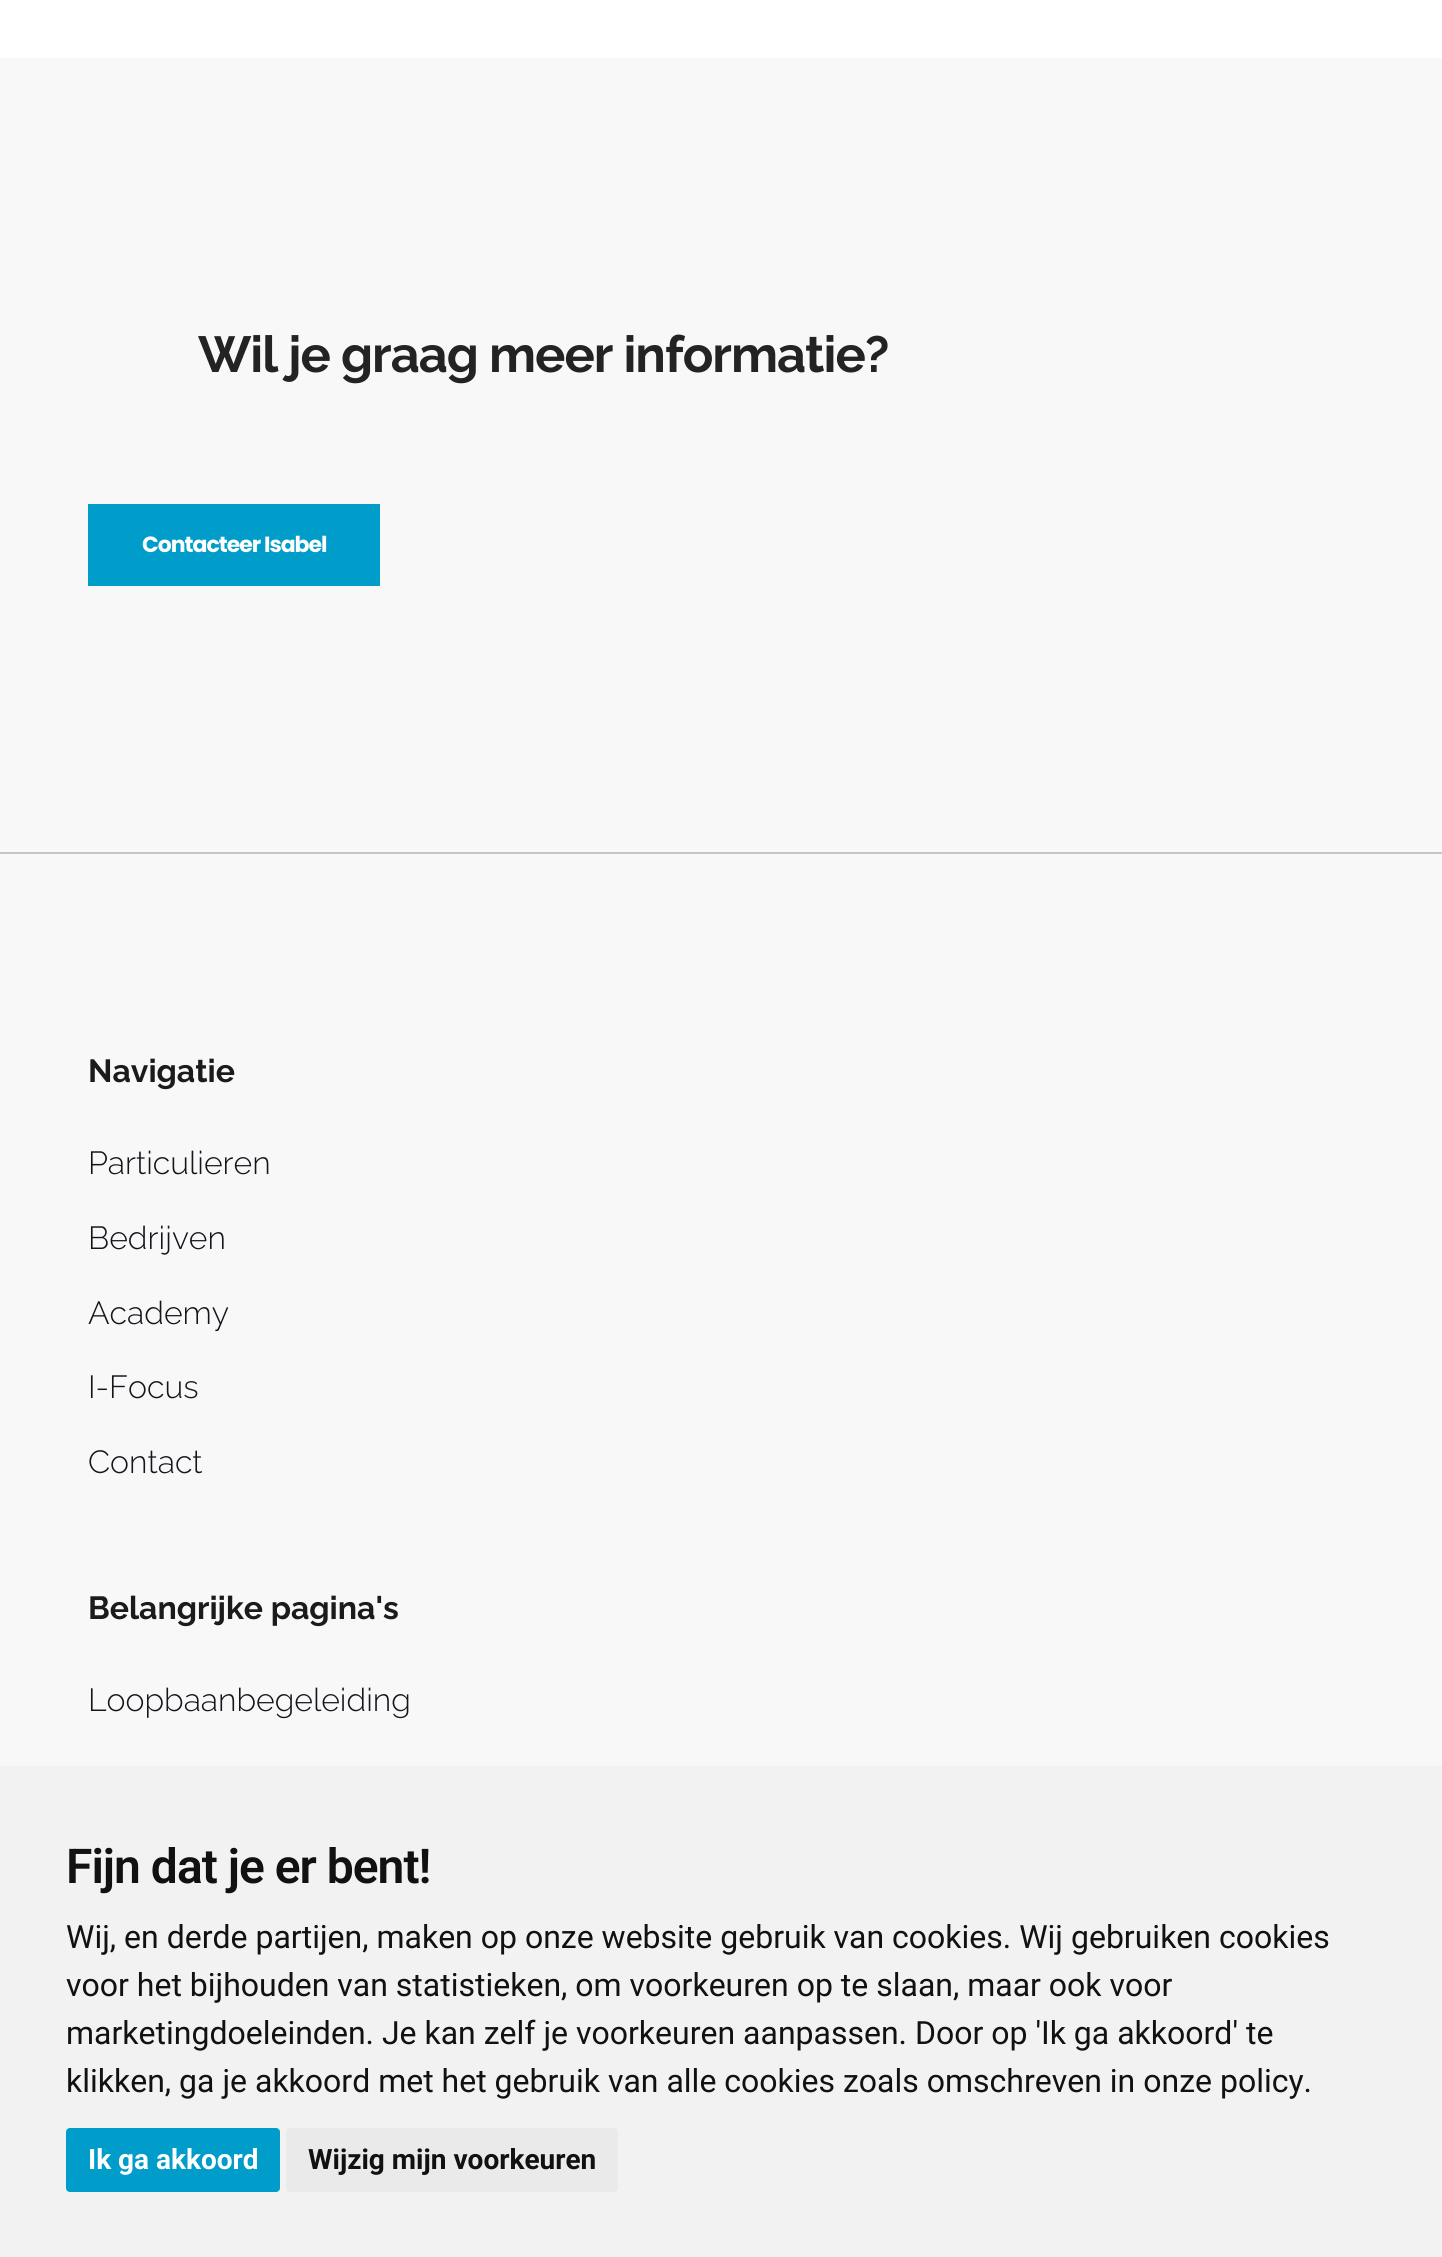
#include <cairo.h>
#include <math.h>
#include <stddef.h>


static void set_color(cairo_t *cr, unsigned color) {
    cairo_set_source_rgb(cr, (color >> 16) / 255.0, (color >> 8 & 255) / 255.0, (color & 255) / 255.0);
}

static void draw_text(cairo_t *cr, double x, double y, const char *s, const char *family, double size, int italic, int bold, unsigned color) {
    cairo_select_font_face(cr, family, italic ? CAIRO_FONT_SLANT_ITALIC : CAIRO_FONT_SLANT_NORMAL,
        bold ? CAIRO_FONT_WEIGHT_BOLD : CAIRO_FONT_WEIGHT_NORMAL);
    cairo_set_font_size(cr, size);
    set_color(cr, color);
    cairo_move_to(cr, x, y);
    cairo_show_text(cr, s);
}

static void draw_spaced(cairo_t *cr, double x, double y, const char *s, double letter, double word) {
    cairo_move_to(cr, x, y);
    while (*s) {
        char ch[5] = {0};
        int n = 0;
        do ch[n++] = *s++; while ((*s & 0xC0) == 0x80);
        cairo_show_text(cr, ch);
        cairo_rel_move_to(cr, letter + word * (*ch == ' '), 0);
    }
}

static void fill_rect(cairo_t *cr, double x, double y, double w, double h, unsigned color) {
    set_color(cr, color);
    cairo_rectangle(cr, x, y, w, h);
    cairo_fill(cr);
}

static void rounded_rect(cairo_t *cr, double x, double y, double w, double h, double r) {
    cairo_new_sub_path(cr);
    cairo_arc(cr, x + w - r, y + h - r, r, 0, M_PI / 2);
    cairo_arc(cr, x + r, y + h - r, r, M_PI / 2, M_PI);
    cairo_arc(cr, x + r, y + r, r, M_PI, 1.5 * M_PI);
    cairo_arc(cr, x + w - r, y + r, r, 1.5 * M_PI, 2 * M_PI);
    cairo_close_path(cr);
}

int main(void) {
    cairo_surface_t *surface = cairo_image_surface_create(CAIRO_FORMAT_RGB24, 1442, 2257);
    cairo_t *cr = cairo_create(surface);
    cairo_font_options_t *options = cairo_font_options_create();
    cairo_font_options_set_hint_metrics(options, CAIRO_HINT_METRICS_OFF);
    cairo_font_options_set_hint_style(options, CAIRO_HINT_STYLE_NONE);
    cairo_set_font_options(cr, options);
    cairo_set_miter_limit(cr, 4);
    set_color(cr, 0xFFFFFF);
    cairo_paint(cr);
    fill_rect(cr, 0, 58, 1442, 794, 0xF8F8F8);
    cairo_select_font_face(cr, "Raleway", CAIRO_FONT_SLANT_NORMAL, CAIRO_FONT_WEIGHT_BOLD);
    cairo_set_font_size(cr, 50.6);
    set_color(cr, 0x232323);
    draw_spaced(cr, 198, 372, "Wil je graag meer informatie?", -1, 0);
    fill_rect(cr, 88, 504, 292, 82, 0x009CCA);
    cairo_select_font_face(cr, "Poppins", CAIRO_FONT_SLANT_NORMAL, CAIRO_FONT_WEIGHT_BOLD);
    cairo_set_font_size(cr, 22);
    set_color(cr, 0xFFFFFF);
    draw_spaced(cr, 142, 552, "Contacteer Isabel", -1, 0);
    fill_rect(cr, 0, 852, 1442, 2, 0xC6C6C6);
    fill_rect(cr, 0, 854, 1442, 912, 0xF8F8F8);
    draw_text(cr, 88, 1082, "Navigatie", "Raleway", 32, 0, 1, 0x1B1B1B);
    draw_text(cr, 88, 1174, "Particulieren", "Raleway Light", 32, 0, 0, 0x14151B);
    draw_text(cr, 88, 1249, "Bedrijven", "Raleway Light", 32, 0, 0, 0x14151B);
    draw_text(cr, 88, 1324, "Academy", "Raleway Light", 32, 0, 0, 0x14151B);
    draw_text(cr, 88, 1398, "I-Focus", "Raleway Light", 32, 0, 0, 0x14151B);
    draw_text(cr, 88, 1473, "Contact", "Raleway Light", 32, 0, 0, 0x14151B);
    draw_text(cr, 88, 1619, "Belangrijke pagina's", "Raleway", 32, 0, 1, 0x1B1B1B);
    draw_text(cr, 88, 1711, "Loopbaanbegeleiding", "Raleway Light", 32, 0, 0, 0x14151B);
    fill_rect(cr, 0, 1766, 1442, 491, 0xF2F2F2);
    cairo_select_font_face(cr, "Roboto SemiBold", CAIRO_FONT_SLANT_NORMAL, CAIRO_FONT_WEIGHT_NORMAL);
    cairo_set_font_size(cr, 48);
    set_color(cr, 0x111111);
    draw_spaced(cr, 66, 1883, "Fijn dat je er bent!", -1, 0);
    draw_text(cr, 66, 1948, "Wij, en derde partijen, maken op onze website gebruik van cookies. Wij gebruiken cookies", "Roboto", 32, 0, 0, 0x111111);
    draw_text(cr, 66, 1996, "voor het bijhouden van statistieken, om voorkeuren op te slaan, maar ook voor", "Roboto", 32, 0, 0, 0x111111);
    draw_text(cr, 66, 2044, "marketingdoeleinden. Je kan zelf je voorkeuren aanpassen. Door op 'Ik ga akkoord' te", "Roboto", 32, 0, 0, 0x111111);
    draw_text(cr, 66, 2092, "klikken, ga je akkoord met het gebruik van alle cookies zoals omschreven in onze policy.", "Roboto", 32, 0, 0, 0x111111);
    set_color(cr, 0x009CCA);
    rounded_rect(cr, 66, 2128, 214, 64, 4);
    cairo_fill(cr);
    draw_text(cr, 88, 2169, "Ik ga akkoord", "Roboto", 28, 0, 1, 0xFFFFFF);
    set_color(cr, 0xEAEAEA);
    rounded_rect(cr, 286, 2128, 332, 64, 4);
    cairo_fill(cr);
    draw_text(cr, 308, 2169, "Wijzig mijn voorkeuren", "Roboto", 28, 0, 1, 0x111111);
    cairo_surface_write_to_png(surface, "output.png");
    cairo_font_options_destroy(options);
    cairo_destroy(cr);
    cairo_surface_destroy(surface);
    return 0;
}
